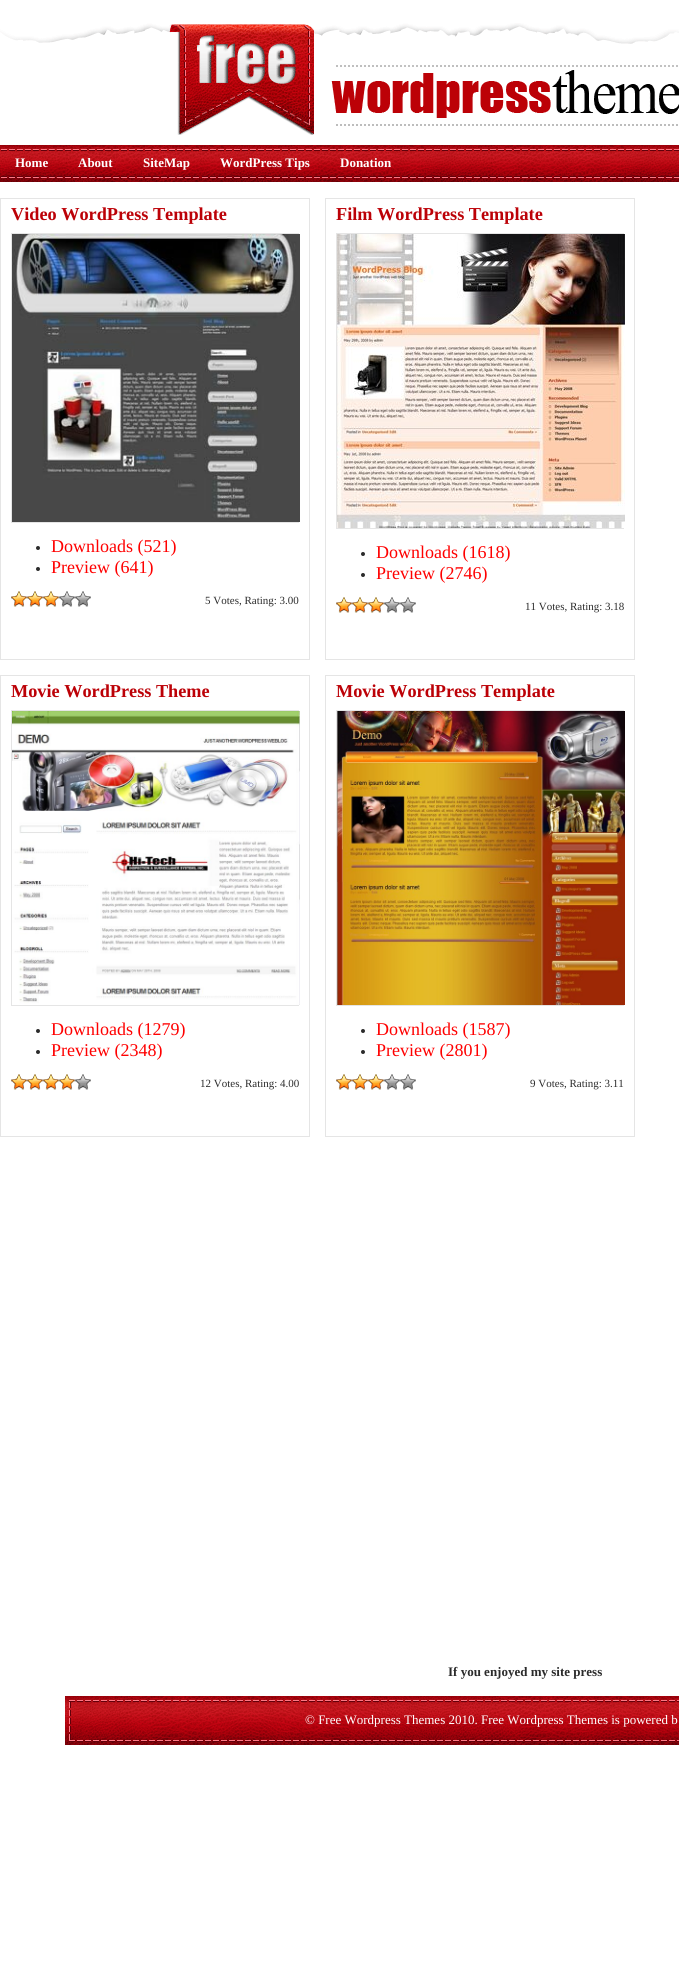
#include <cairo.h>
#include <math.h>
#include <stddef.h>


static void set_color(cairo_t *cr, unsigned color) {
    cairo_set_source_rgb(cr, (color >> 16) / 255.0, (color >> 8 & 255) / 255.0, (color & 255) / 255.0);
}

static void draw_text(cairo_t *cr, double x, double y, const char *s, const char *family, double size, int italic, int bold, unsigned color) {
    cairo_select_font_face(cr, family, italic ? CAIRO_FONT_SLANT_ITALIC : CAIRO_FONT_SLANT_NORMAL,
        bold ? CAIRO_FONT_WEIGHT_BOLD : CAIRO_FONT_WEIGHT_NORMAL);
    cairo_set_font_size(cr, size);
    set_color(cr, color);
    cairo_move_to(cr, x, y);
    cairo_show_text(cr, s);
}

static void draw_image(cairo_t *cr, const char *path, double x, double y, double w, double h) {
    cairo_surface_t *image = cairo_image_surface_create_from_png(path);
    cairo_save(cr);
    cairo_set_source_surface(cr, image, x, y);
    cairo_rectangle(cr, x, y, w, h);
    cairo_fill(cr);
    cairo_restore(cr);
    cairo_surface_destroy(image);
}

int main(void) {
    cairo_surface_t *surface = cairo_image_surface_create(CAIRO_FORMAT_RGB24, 679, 1974);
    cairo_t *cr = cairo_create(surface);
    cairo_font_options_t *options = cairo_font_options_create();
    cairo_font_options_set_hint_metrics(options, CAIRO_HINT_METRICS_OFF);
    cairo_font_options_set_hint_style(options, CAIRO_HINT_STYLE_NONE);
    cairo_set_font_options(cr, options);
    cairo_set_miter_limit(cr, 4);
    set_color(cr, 0xFFFFFF);
    cairo_paint(cr);
    draw_image(cr, "assets/img1.png", 0, 23, 679, 112);
    draw_image(cr, "assets/img2.png", 200, 145, 479, 37);
    draw_image(cr, "assets/img3.png", 0, 145, 200, 37);
    draw_image(cr, "assets/img4.png", 22, 145, 41, 37);
    draw_text(cr, 15, 167, "Home", "Liberation Serif", 13, 0, 1, 0xFFFFFF);
    draw_text(cr, 78, 167, "About", "Liberation Serif", 13, 0, 1, 0xFFFFFF);
    draw_text(cr, 143, 167, "SiteMap", "Liberation Serif", 13, 0, 1, 0xFFFFFF);
    draw_text(cr, 220, 167, "WordPress Tips", "Liberation Serif", 13, 0, 1, 0xFFFFFF);
    draw_text(cr, 340, 167, "Donation", "Liberation Serif", 13, 0, 1, 0xFFFFFF);
    cairo_rectangle(cr, 0.5, 198.5, 309, 461);
    set_color(cr, 0xE5E5E5);
    cairo_set_line_width(cr, 1);
    cairo_stroke(cr);
    draw_text(cr, 11, 220, "Video WordPress Template", "Liberation Serif", 18.25, 0, 1, 0xBC0107);
    cairo_rectangle(cr, 11.5, 233.5, 287, 289);
    set_color(cr, 0xE5E5E5);
    cairo_stroke(cr);
    draw_image(cr, "assets/img5.png", 12, 234, 288, 288);
    set_color(cr, 0x2B2B2B);
    cairo_arc(cr, 38, 548, 2, 0, 2 * M_PI);
    cairo_fill(cr);
    draw_text(cr, 51, 552, "Downloads (521)", "Liberation Serif", 18, 0, 0, 0xFF0000);
    set_color(cr, 0x2B2B2B);
    cairo_new_path(cr);
    cairo_arc(cr, 38, 569, 2, 0, 2 * M_PI);
    cairo_fill(cr);
    draw_text(cr, 51, 573, "Preview (641)", "Liberation Serif", 18, 0, 0, 0xFF0000);
    draw_image(cr, "assets/img6.png", 11, 591, 16, 16);
    draw_image(cr, "assets/img6.png", 27, 591, 16, 16);
    draw_image(cr, "assets/img6.png", 43, 591, 16, 16);
    draw_image(cr, "assets/img7.png", 59, 591, 16, 16);
    draw_image(cr, "assets/img7.png", 75, 591, 16, 16);
    draw_text(cr, 205, 604, "5 Votes, Rating: 3.00", "Liberation Serif", 11, 0, 0, 0x2B2B2B);
    cairo_rectangle(cr, 325.5, 198.5, 309, 461);
    set_color(cr, 0xE5E5E5);
    cairo_stroke(cr);
    draw_text(cr, 336, 220, "Film WordPress Template", "Liberation Serif", 18.25, 0, 1, 0xBC0107);
    cairo_rectangle(cr, 336.5, 233.5, 287, 295);
    set_color(cr, 0xE5E5E5);
    cairo_stroke(cr);
    draw_image(cr, "assets/img8.png", 337, 234, 288, 294);
    set_color(cr, 0x2B2B2B);
    cairo_arc(cr, 363, 554, 2, 0, 2 * M_PI);
    cairo_fill(cr);
    draw_text(cr, 376, 558, "Downloads (1618)", "Liberation Serif", 18, 0, 0, 0xFF0000);
    set_color(cr, 0x2B2B2B);
    cairo_new_path(cr);
    cairo_arc(cr, 363, 575, 2, 0, 2 * M_PI);
    cairo_fill(cr);
    draw_text(cr, 376, 579, "Preview (2746)", "Liberation Serif", 18, 0, 0, 0xFF0000);
    draw_image(cr, "assets/img6.png", 336, 597, 16, 16);
    draw_image(cr, "assets/img6.png", 352, 597, 16, 16);
    draw_image(cr, "assets/img6.png", 368, 597, 16, 16);
    draw_image(cr, "assets/img7.png", 384, 597, 16, 16);
    draw_image(cr, "assets/img7.png", 400, 597, 16, 16);
    draw_text(cr, 525, 610, "11 Votes, Rating: 3.18", "Liberation Serif", 11, 0, 0, 0x2B2B2B);
    cairo_rectangle(cr, 0.5, 675.5, 309, 461);
    set_color(cr, 0xE5E5E5);
    cairo_stroke(cr);
    draw_text(cr, 11, 697, "Movie WordPress Theme", "Liberation Serif", 18.25, 0, 1, 0xBC0107);
    cairo_rectangle(cr, 11.5, 710.5, 287, 295);
    set_color(cr, 0xE5E5E5);
    cairo_stroke(cr);
    draw_image(cr, "assets/img9.png", 12, 711, 288, 294);
    set_color(cr, 0x2B2B2B);
    cairo_arc(cr, 38, 1031, 2, 0, 2 * M_PI);
    cairo_fill(cr);
    draw_text(cr, 51, 1035, "Downloads (1279)", "Liberation Serif", 18, 0, 0, 0xFF0000);
    set_color(cr, 0x2B2B2B);
    cairo_new_path(cr);
    cairo_arc(cr, 38, 1052, 2, 0, 2 * M_PI);
    cairo_fill(cr);
    draw_text(cr, 51, 1056, "Preview (2348)", "Liberation Serif", 18, 0, 0, 0xFF0000);
    draw_image(cr, "assets/img6.png", 11, 1074, 16, 16);
    draw_image(cr, "assets/img6.png", 27, 1074, 16, 16);
    draw_image(cr, "assets/img6.png", 43, 1074, 16, 16);
    draw_image(cr, "assets/img6.png", 59, 1074, 16, 16);
    draw_image(cr, "assets/img7.png", 75, 1074, 16, 16);
    draw_text(cr, 200, 1087, "12 Votes, Rating: 4.00", "Liberation Serif", 11, 0, 0, 0x2B2B2B);
    cairo_rectangle(cr, 325.5, 675.5, 309, 461);
    set_color(cr, 0xE5E5E5);
    cairo_stroke(cr);
    draw_text(cr, 336, 697, "Movie WordPress Template", "Liberation Serif", 18.25, 0, 1, 0xBC0107);
    cairo_rectangle(cr, 336.5, 710.5, 287, 295);
    set_color(cr, 0xE5E5E5);
    cairo_stroke(cr);
    draw_image(cr, "assets/img10.png", 337, 711, 288, 294);
    set_color(cr, 0x2B2B2B);
    cairo_arc(cr, 363, 1031, 2, 0, 2 * M_PI);
    cairo_fill(cr);
    draw_text(cr, 376, 1035, "Downloads (1587)", "Liberation Serif", 18, 0, 0, 0xFF0000);
    set_color(cr, 0x2B2B2B);
    cairo_new_path(cr);
    cairo_arc(cr, 363, 1052, 2, 0, 2 * M_PI);
    cairo_fill(cr);
    draw_text(cr, 376, 1056, "Preview (2801)", "Liberation Serif", 18, 0, 0, 0xFF0000);
    draw_image(cr, "assets/img6.png", 336, 1074, 16, 16);
    draw_image(cr, "assets/img6.png", 352, 1074, 16, 16);
    draw_image(cr, "assets/img6.png", 368, 1074, 16, 16);
    draw_image(cr, "assets/img7.png", 384, 1074, 16, 16);
    draw_image(cr, "assets/img7.png", 400, 1074, 16, 16);
    draw_text(cr, 530, 1087, "9 Votes, Rating: 3.11", "Liberation Serif", 11, 0, 0, 0x2B2B2B);
    draw_text(cr, 448, 1676, "If you enjoyed my site press", "Liberation Serif", 13, 0, 1, 0x2B2B2B);
    draw_image(cr, "assets/img11.png", 65, 1696, 614, 49);
    draw_text(cr, 305, 1724, "© Free Wordpress Themes 2010. Free Wordpress Themes is powered b", "Liberation Serif", 13, 0, 0, 0xFFFFFF);
    cairo_surface_write_to_png(surface, "output.png");
    cairo_font_options_destroy(options);
    cairo_destroy(cr);
    cairo_surface_destroy(surface);
    return 0;
}
